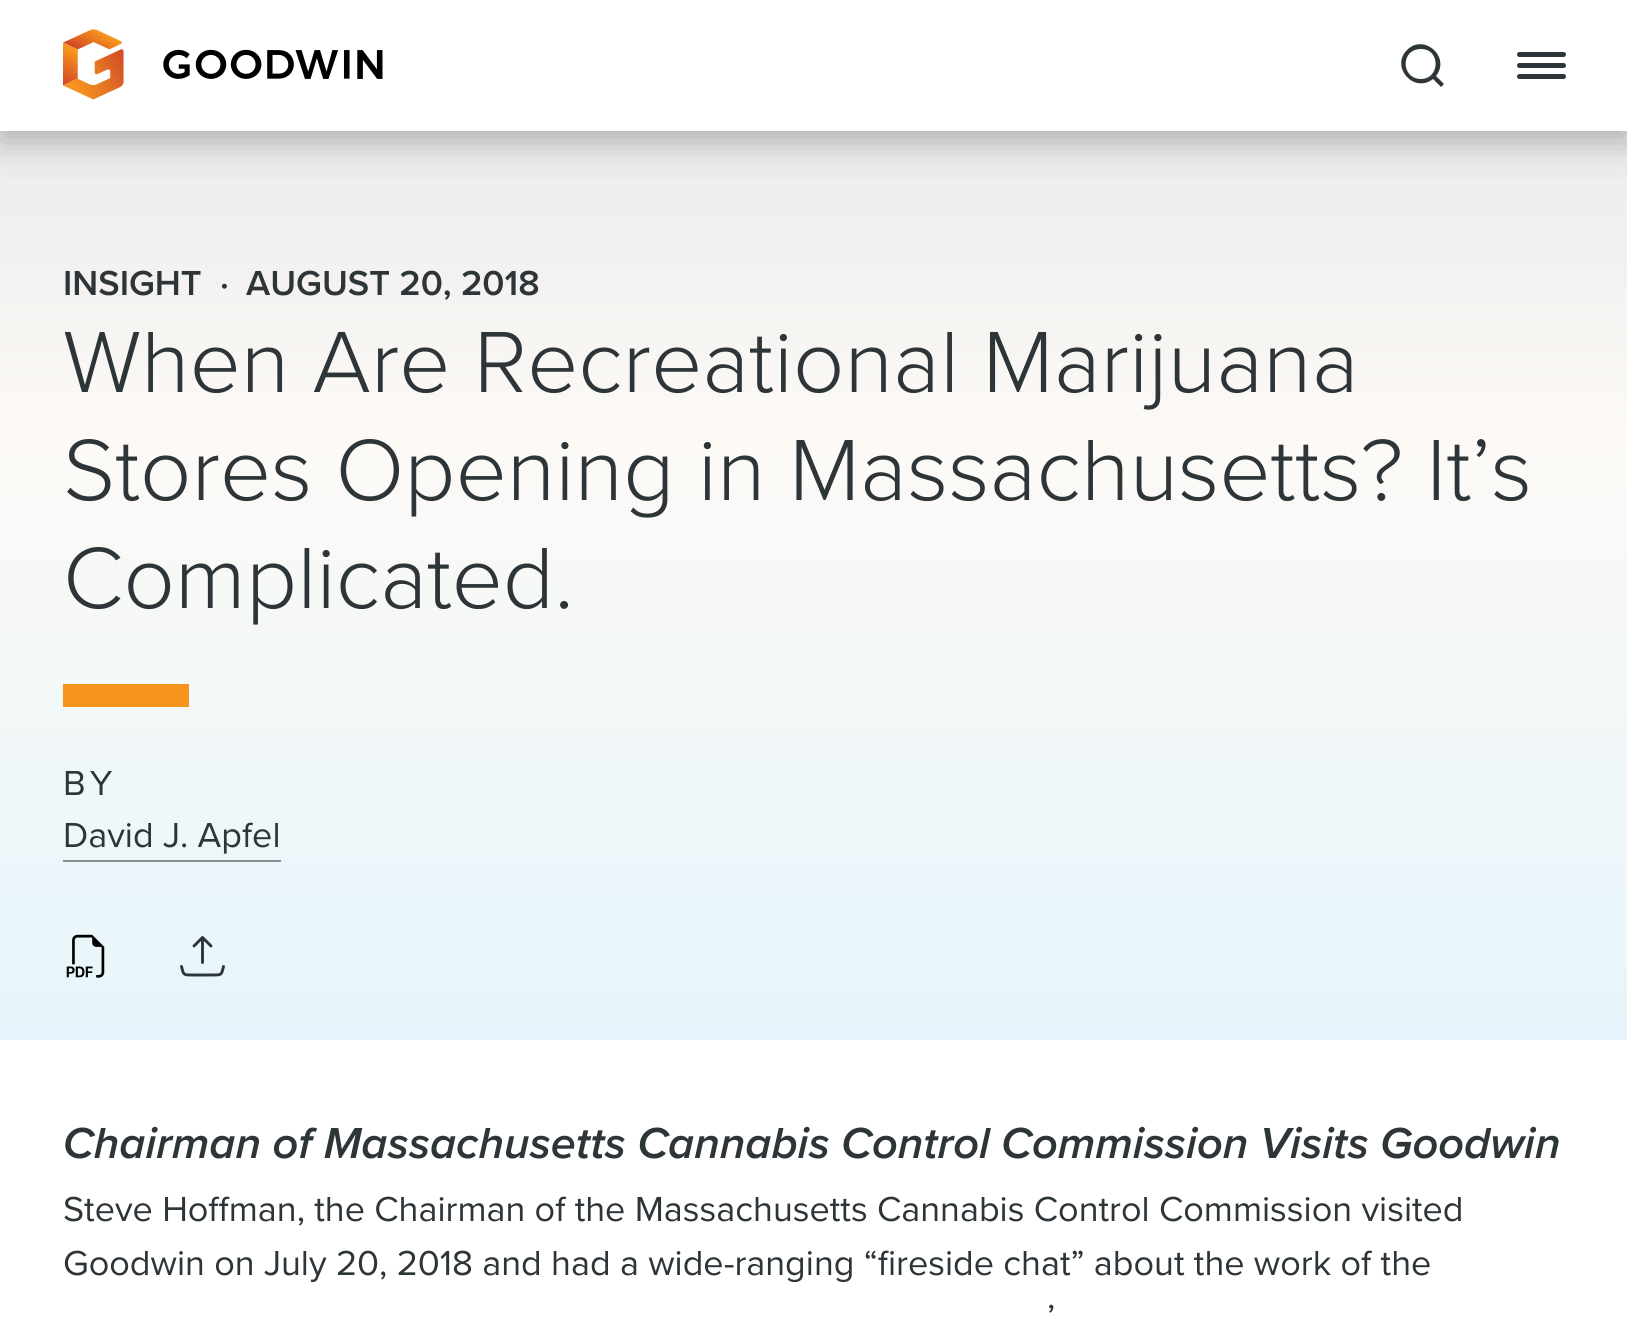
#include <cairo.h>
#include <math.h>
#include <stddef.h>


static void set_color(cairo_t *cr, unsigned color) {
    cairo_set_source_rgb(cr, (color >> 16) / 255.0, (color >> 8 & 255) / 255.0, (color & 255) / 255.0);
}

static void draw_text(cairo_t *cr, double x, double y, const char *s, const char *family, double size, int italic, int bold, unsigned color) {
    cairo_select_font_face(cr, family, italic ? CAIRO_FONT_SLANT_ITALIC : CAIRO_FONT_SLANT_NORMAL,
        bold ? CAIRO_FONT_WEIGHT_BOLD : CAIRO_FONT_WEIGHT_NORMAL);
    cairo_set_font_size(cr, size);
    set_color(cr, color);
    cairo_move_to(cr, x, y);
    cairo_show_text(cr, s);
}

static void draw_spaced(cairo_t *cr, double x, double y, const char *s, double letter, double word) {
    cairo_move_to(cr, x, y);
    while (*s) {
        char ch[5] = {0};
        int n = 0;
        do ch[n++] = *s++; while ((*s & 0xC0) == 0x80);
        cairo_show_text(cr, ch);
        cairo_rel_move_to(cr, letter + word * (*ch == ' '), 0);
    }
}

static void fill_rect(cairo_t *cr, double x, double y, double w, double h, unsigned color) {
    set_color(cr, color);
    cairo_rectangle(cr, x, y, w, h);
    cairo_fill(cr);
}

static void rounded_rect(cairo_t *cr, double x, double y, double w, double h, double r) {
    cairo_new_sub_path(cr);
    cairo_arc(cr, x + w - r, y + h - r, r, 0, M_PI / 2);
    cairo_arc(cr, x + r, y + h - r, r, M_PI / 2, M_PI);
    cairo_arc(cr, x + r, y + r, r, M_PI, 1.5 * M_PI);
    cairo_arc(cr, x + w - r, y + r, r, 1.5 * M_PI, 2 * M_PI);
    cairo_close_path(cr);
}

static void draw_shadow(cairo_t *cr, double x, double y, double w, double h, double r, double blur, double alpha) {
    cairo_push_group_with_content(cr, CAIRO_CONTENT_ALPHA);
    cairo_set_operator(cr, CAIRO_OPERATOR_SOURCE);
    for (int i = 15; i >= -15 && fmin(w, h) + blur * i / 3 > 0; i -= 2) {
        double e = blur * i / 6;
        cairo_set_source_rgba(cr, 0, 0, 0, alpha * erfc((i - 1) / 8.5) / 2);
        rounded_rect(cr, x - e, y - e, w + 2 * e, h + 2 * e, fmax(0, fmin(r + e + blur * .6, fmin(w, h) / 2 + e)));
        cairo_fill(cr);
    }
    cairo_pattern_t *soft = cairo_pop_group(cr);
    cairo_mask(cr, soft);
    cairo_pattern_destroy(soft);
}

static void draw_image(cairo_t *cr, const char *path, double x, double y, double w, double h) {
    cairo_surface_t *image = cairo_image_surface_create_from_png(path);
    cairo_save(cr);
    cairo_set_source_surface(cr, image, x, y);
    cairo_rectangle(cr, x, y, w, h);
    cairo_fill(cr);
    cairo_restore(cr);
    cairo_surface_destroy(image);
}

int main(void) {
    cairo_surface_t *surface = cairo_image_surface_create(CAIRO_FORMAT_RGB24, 1627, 1321);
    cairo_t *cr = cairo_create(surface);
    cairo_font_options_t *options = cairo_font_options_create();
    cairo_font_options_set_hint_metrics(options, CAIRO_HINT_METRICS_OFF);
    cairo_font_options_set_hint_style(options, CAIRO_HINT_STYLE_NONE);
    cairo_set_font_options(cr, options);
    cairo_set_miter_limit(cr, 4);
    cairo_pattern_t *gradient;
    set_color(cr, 0xFFFFFF);
    cairo_paint(cr);
    gradient = cairo_pattern_create_linear(815, 130, 815, 1040);
    cairo_pattern_add_color_stop_rgba(gradient, 0, 0.922, 0.922, 0.922, 1);
    cairo_pattern_add_color_stop_rgba(gradient, 0.34, 0.992, 0.98, 0.965, 1);
    cairo_pattern_add_color_stop_rgba(gradient, 0.99, 0.902, 0.961, 0.984, 1);
    cairo_set_source(cr, gradient);
    cairo_pattern_destroy(gradient);
    cairo_rectangle(cr, 0, 131, 1627, 909);
    cairo_fill(cr);
    set_color(cr, 0x000000);
    draw_shadow(cr, 0, 11, 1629, 131, 0, 17, 0.25);
    fill_rect(cr, 0, 0, 1627, 131, 0xFFFFFF);
    draw_image(cr, "assets/img1.png", 63, 29, 320, 71);
    set_color(cr, 0x2D3539);
    cairo_set_fill_rule(cr, CAIRO_FILL_RULE_EVEN_ODD);
    cairo_new_path(cr);
    cairo_move_to(cr, 1421, 49);
    cairo_curve_to(cr, 1400, 49, 1401, 79, 1421, 79);
    cairo_curve_to(cr, 1440, 79, 1441, 49, 1421, 49);
    cairo_close_path(cr);
    cairo_move_to(cr, 1407, 50);
    cairo_curve_to(cr, 1424, 33, 1451, 57, 1436, 76);
    cairo_line_to(cr, 1444, 84);
    cairo_line_to(cr, 1441, 87);
    cairo_line_to(cr, 1433, 79);
    cairo_curve_to(cr, 1414, 94, 1390, 67, 1407, 50);
    cairo_close_path(cr);
    cairo_fill(cr);
    rounded_rect(cr, 1517, 63, 49, 5, 2.5);
    cairo_fill(cr);
    rounded_rect(cr, 1517, 52, 49, 5, 2.5);
    cairo_fill(cr);
    rounded_rect(cr, 1517, 74, 49, 5, 2.5);
    cairo_fill(cr);
    draw_text(cr, 63, 295, "INSIGHT", "Proxima Nova SemiBold", 36, 0, 0, 0x2D3539);
    draw_text(cr, 220, 295, "·", "Proxima Nova SemiBold", 36, 0, 0, 0x2D3539);
    draw_text(cr, 246, 295, "AUGUST 20, 2018", "Proxima Nova SemiBold", 36, 0, 0, 0x2D3539);
    draw_text(cr, 63, 392, "When Are Recreational Marijuana", "Proxima Nova Light", 90, 0, 0, 0x2D3539);
    draw_text(cr, 63, 500, "Stores Opening in Massachusetts? It’s", "Proxima Nova Light", 90, 0, 0, 0x2D3539);
    draw_text(cr, 63, 608, "Complicated.", "Proxima Nova Light", 90, 0, 0, 0x2D3539);
    fill_rect(cr, 63, 684, 126, 23, 0xF7941D);
    cairo_select_font_face(cr, "Proxima Nova", CAIRO_FONT_SLANT_NORMAL, CAIRO_FONT_WEIGHT_NORMAL);
    cairo_set_font_size(cr, 36);
    set_color(cr, 0x2D3539);
    draw_spaced(cr, 63, 795, "BY", 4, 0);
    fill_rect(cr, 63, 860, 218, 2, 0x868D91);
    draw_text(cr, 63, 847, "David J. Apfel", "Proxima Nova", 36, 0, 0, 0x2D3539);
    draw_image(cr, "assets/img2.png", 66, 934, 39, 44);
    cairo_new_path(cr);
    cairo_move_to(cr, 181.5, 966.5);
    cairo_curve_to(cr, 183.5, 975, 183.5, 975, 192, 975);
    cairo_line_to(cr, 213, 975);
    cairo_curve_to(cr, 221.5, 975, 221.5, 975, 223.5, 966.5);
    cairo_move_to(cr, 202.5, 937.5);
    cairo_line_to(cr, 202.5, 962.5);
    cairo_close_path(cr);
    cairo_move_to(cr, 202.5, 937.5);
    cairo_line_to(cr, 194, 946);
    cairo_close_path(cr);
    cairo_move_to(cr, 202.5, 937.5);
    cairo_line_to(cr, 211, 946);
    cairo_close_path(cr);
    cairo_set_line_width(cr, 2.9);
    cairo_set_line_cap(cr, CAIRO_LINE_CAP_ROUND);
    cairo_set_line_join(cr, CAIRO_LINE_JOIN_ROUND);
    cairo_stroke(cr);
    draw_text(cr, 63, 1158, "Chairman of Massachusetts Cannabis Control Commission Visits Goodwin", "Proxima Nova SemiBold", 45, 1, 0, 0x2D3539);
    draw_text(cr, 63, 1221, "Steve Hoffman, the Chairman of the Massachusetts Cannabis Control Commission visited", "Proxima Nova", 36, 0, 0, 0x2D3539);
    draw_text(cr, 63, 1275, "Goodwin on July 20, 2018 and had a wide-ranging “fireside chat” about the work of the", "Proxima Nova", 36, 0, 0, 0x2D3539);
    draw_text(cr, 1047, 1329, "’", "Proxima Nova", 36, 0, 0, 0x2D3539);
    cairo_surface_write_to_png(surface, "output.png");
    cairo_font_options_destroy(options);
    cairo_destroy(cr);
    cairo_surface_destroy(surface);
    return 0;
}
